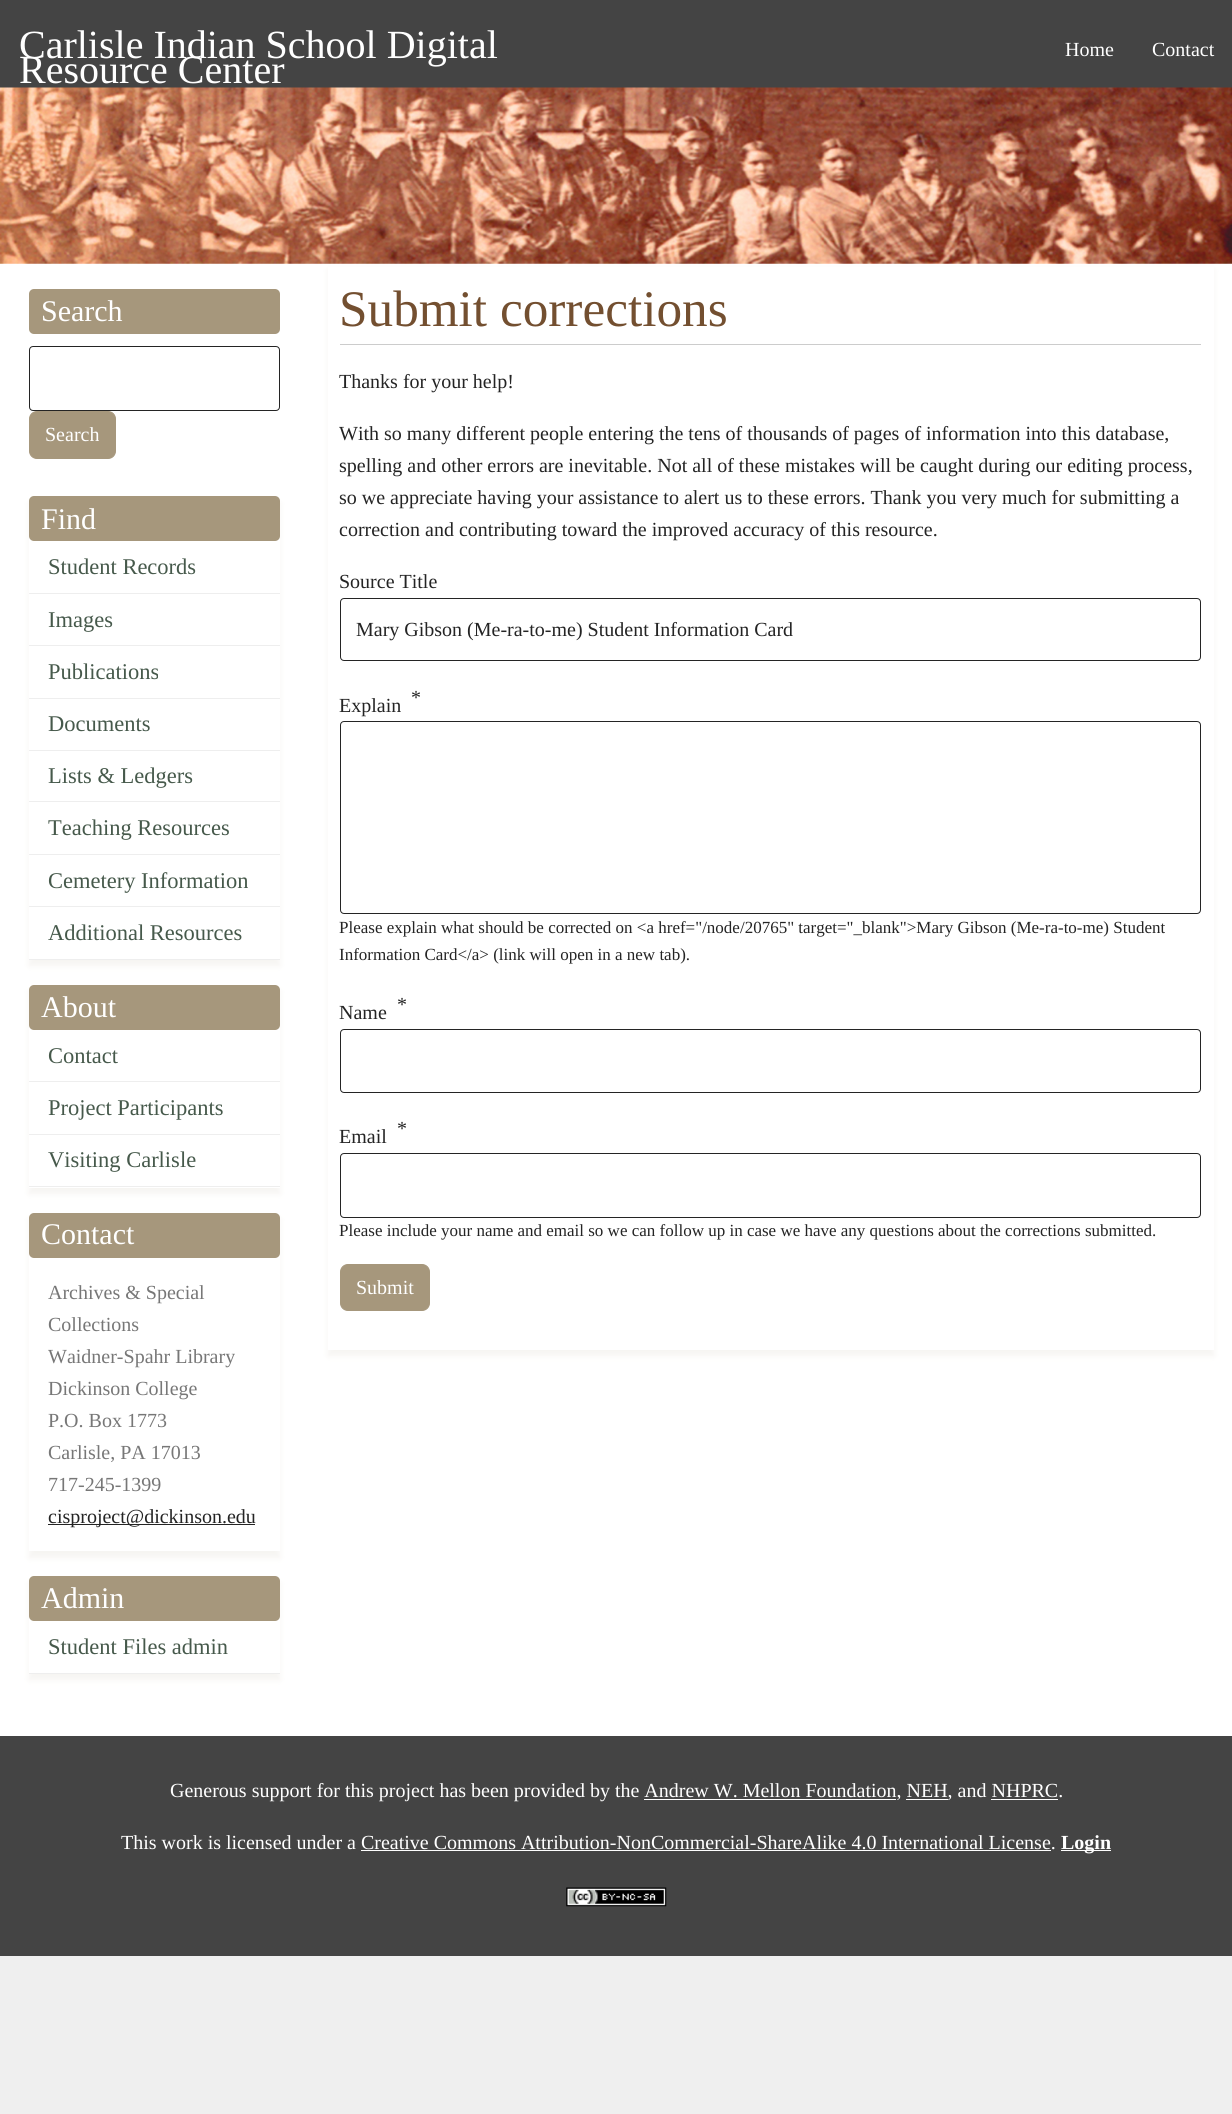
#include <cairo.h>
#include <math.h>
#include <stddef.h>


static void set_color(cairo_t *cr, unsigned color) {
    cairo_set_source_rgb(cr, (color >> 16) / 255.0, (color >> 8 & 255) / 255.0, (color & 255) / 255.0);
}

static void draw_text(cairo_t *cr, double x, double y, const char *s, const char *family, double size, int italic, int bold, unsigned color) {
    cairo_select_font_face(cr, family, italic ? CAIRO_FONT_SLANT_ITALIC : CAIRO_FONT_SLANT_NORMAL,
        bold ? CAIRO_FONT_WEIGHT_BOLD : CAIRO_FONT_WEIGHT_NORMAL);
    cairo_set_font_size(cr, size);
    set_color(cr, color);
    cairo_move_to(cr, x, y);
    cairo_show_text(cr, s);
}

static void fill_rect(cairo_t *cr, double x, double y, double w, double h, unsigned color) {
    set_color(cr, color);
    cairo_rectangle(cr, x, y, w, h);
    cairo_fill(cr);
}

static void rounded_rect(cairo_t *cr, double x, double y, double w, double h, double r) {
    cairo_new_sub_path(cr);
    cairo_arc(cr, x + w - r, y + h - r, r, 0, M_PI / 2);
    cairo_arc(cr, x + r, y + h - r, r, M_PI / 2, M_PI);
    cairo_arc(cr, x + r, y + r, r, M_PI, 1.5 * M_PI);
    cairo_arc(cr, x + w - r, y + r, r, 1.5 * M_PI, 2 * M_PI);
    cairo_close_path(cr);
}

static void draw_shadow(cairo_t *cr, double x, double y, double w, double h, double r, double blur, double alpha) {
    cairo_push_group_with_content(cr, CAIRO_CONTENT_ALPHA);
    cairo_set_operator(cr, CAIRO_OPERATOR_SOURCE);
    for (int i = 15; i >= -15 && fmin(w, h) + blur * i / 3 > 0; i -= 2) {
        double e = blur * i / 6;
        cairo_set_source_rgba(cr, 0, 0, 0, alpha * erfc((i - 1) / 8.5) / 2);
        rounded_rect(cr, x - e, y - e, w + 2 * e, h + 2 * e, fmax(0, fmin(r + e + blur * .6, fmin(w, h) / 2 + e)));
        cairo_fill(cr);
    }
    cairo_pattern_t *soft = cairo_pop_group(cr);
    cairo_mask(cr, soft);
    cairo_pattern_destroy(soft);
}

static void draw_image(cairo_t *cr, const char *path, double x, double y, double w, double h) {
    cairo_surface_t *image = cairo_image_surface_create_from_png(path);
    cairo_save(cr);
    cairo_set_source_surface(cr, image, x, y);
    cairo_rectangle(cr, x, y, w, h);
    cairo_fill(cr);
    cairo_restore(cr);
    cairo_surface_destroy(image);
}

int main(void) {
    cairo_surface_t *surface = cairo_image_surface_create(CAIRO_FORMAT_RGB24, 1232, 2114);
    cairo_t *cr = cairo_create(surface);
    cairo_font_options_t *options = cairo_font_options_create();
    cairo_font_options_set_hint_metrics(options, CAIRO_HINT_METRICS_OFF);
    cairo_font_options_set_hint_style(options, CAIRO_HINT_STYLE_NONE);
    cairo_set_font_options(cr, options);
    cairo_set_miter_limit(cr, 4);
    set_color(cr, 0xEFEFEF);
    cairo_paint(cr);
    fill_rect(cr, 0, 263, 1232, 1473, 0xFFFFFF);
    fill_rect(cr, 0, 0, 1232, 88, 0x444444);
    draw_text(cr, 19, 58, "Carlisle Indian School Digital", "Liberation Serif", 40, 0, 0, 0xFFFFFF);
    draw_text(cr, 19, 83, "Resource Center", "Liberation Serif", 40, 0, 0, 0xFFFFFF);
    draw_text(cr, 1065, 56, "Home", "Liberation Serif", 20, 0, 0, 0xFFFFFF);
    draw_text(cr, 1152, 56, "Contact", "Liberation Serif", 20, 0, 0, 0xFFFFFF);
    draw_image(cr, "assets/img1.png", 0, 87, 1232, 177);
    set_color(cr, 0xA6977C);
    rounded_rect(cr, 29, 289, 251, 45, 5);
    cairo_fill(cr);
    draw_text(cr, 41, 321, "Search", "Liberation Serif", 30, 0, 0, 0xFFFFFF);
    rounded_rect(cr, 29.5, 346.5, 250, 64, 3.5);
    set_color(cr, 0x242424);
    cairo_set_line_width(cr, 1);
    cairo_stroke(cr);
    set_color(cr, 0xA6977C);
    rounded_rect(cr, 29.5, 411.5, 86, 47, 7.5);
    cairo_fill_preserve(cr);
    cairo_stroke(cr);
    draw_text(cr, 45, 441, "Search", "Liberation Serif", 20, 0, 0, 0xFFFFFF);
    cairo_save(cr);
    cairo_set_fill_rule(cr, CAIRO_FILL_RULE_EVEN_ODD);
    cairo_new_path(cr);
    cairo_move_to(cr, 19, 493);
    cairo_line_to(cr, 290, 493);
    cairo_line_to(cr, 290, 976);
    cairo_line_to(cr, 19, 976);
    cairo_close_path(cr);
    cairo_move_to(cr, 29, 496);
    cairo_line_to(cr, 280, 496);
    cairo_line_to(cr, 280, 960);
    cairo_line_to(cr, 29, 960);
    cairo_close_path(cr);
    cairo_clip(cr);
    set_color(cr, 0xA6977C);
    draw_shadow(cr, 29, 503, 251, 463, 0, 3, 0.1);
    cairo_restore(cr);
    set_color(cr, 0xA6977C);
    rounded_rect(cr, 29, 496, 251, 45, 5);
    cairo_fill(cr);
    draw_text(cr, 41, 529, "Find", "Liberation Serif", 30, 0, 0, 0xFFFFFF);
    fill_rect(cr, 29, 593, 251, 1, 0xEEEEEE);
    draw_text(cr, 48, 574, "Student Records", "Liberation Serif", 22.5, 0, 0, 0x46594B);
    fill_rect(cr, 29, 645, 251, 1, 0xEEEEEE);
    draw_text(cr, 48, 627, "Images", "Liberation Serif", 22.5, 0, 0, 0x46594B);
    fill_rect(cr, 29, 698, 251, 1, 0xEEEEEE);
    draw_text(cr, 48, 679, "Publications", "Liberation Serif", 22.5, 0, 0, 0x46594B);
    fill_rect(cr, 29, 750, 251, 1, 0xEEEEEE);
    draw_text(cr, 48, 731, "Documents", "Liberation Serif", 22.5, 0, 0, 0x46594B);
    fill_rect(cr, 29, 801, 251, 1, 0xEEEEEE);
    draw_text(cr, 48, 783, "Lists & Ledgers", "Liberation Serif", 22.5, 0, 0, 0x46594B);
    fill_rect(cr, 29, 854, 251, 1, 0xEEEEEE);
    draw_text(cr, 48, 835, "Teaching Resources", "Liberation Serif", 22.5, 0, 0, 0x46594B);
    fill_rect(cr, 29, 906, 251, 1, 0xEEEEEE);
    draw_text(cr, 48, 888, "Cemetery Information", "Liberation Serif", 22.5, 0, 0, 0x46594B);
    fill_rect(cr, 29, 959, 251, 1, 0xEEEEEE);
    draw_text(cr, 48, 940, "Additional Resources", "Liberation Serif", 22.5, 0, 0, 0x46594B);
    cairo_save(cr);
    cairo_set_fill_rule(cr, CAIRO_FILL_RULE_EVEN_ODD);
    cairo_new_path(cr);
    cairo_move_to(cr, 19, 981);
    cairo_line_to(cr, 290, 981);
    cairo_line_to(cr, 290, 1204);
    cairo_line_to(cr, 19, 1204);
    cairo_close_path(cr);
    cairo_move_to(cr, 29, 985);
    cairo_line_to(cr, 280, 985);
    cairo_line_to(cr, 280, 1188);
    cairo_line_to(cr, 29, 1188);
    cairo_close_path(cr);
    cairo_clip(cr);
    set_color(cr, 0xA6977C);
    draw_shadow(cr, 29, 991, 251, 203, 0, 3, 0.1);
    cairo_restore(cr);
    set_color(cr, 0xA6977C);
    rounded_rect(cr, 29, 985, 251, 45, 5);
    cairo_fill(cr);
    draw_text(cr, 41, 1017, "About", "Liberation Serif", 30, 0, 0, 0xFFFFFF);
    fill_rect(cr, 29, 1081, 251, 1, 0xEEEEEE);
    draw_text(cr, 48, 1063, "Contact", "Liberation Serif", 22.5, 0, 0, 0x46594B);
    fill_rect(cr, 29, 1134, 251, 1, 0xEEEEEE);
    draw_text(cr, 48, 1115, "Project Participants", "Liberation Serif", 22.5, 0, 0, 0x46594B);
    fill_rect(cr, 29, 1186, 251, 1, 0xEEEEEE);
    draw_text(cr, 48, 1167, "Visiting Carlisle", "Liberation Serif", 22.5, 0, 0, 0x46594B);
    cairo_save(cr);
    cairo_set_fill_rule(cr, CAIRO_FILL_RULE_EVEN_ODD);
    cairo_new_path(cr);
    cairo_move_to(cr, 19, 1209);
    cairo_line_to(cr, 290, 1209);
    cairo_line_to(cr, 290, 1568);
    cairo_line_to(cr, 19, 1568);
    cairo_close_path(cr);
    cairo_move_to(cr, 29, 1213);
    cairo_line_to(cr, 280, 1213);
    cairo_line_to(cr, 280, 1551);
    cairo_line_to(cr, 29, 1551);
    cairo_close_path(cr);
    cairo_clip(cr);
    set_color(cr, 0xA6977C);
    draw_shadow(cr, 29, 1219, 251, 339, 0, 3, 0.1);
    cairo_restore(cr);
    set_color(cr, 0xA6977C);
    rounded_rect(cr, 29, 1213, 251, 45, 5);
    cairo_fill(cr);
    draw_text(cr, 41, 1244, "Contact", "Liberation Serif", 30, 0, 0, 0xFFFFFF);
    draw_text(cr, 48, 1299, "Archives & Special", "Liberation Serif", 20, 0, 0, 0x777777);
    draw_text(cr, 48, 1331, "Collections", "Liberation Serif", 20, 0, 0, 0x777777);
    draw_text(cr, 48, 1363, "Waidner-Spahr Library", "Liberation Serif", 20, 0, 0, 0x777777);
    draw_text(cr, 48, 1395, "Dickinson College", "Liberation Serif", 20, 0, 0, 0x777777);
    draw_text(cr, 48, 1427, "P.O. Box 1773", "Liberation Serif", 20, 0, 0, 0x777777);
    draw_text(cr, 48, 1459, "Carlisle, PA 17013", "Liberation Serif", 20, 0, 0, 0x777777);
    draw_text(cr, 48, 1491, "717-245-1399", "Liberation Serif", 20, 0, 0, 0x777777);
    fill_rect(cr, 48, 1524, 207, 1, 0x242424);
    draw_text(cr, 48, 1523, "cisproject@dickinson.edu", "Liberation Serif", 20, 0, 0, 0x242424);
    cairo_save(cr);
    cairo_set_fill_rule(cr, CAIRO_FILL_RULE_EVEN_ODD);
    cairo_new_path(cr);
    cairo_move_to(cr, 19, 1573);
    cairo_line_to(cr, 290, 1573);
    cairo_line_to(cr, 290, 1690);
    cairo_line_to(cr, 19, 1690);
    cairo_close_path(cr);
    cairo_move_to(cr, 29, 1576);
    cairo_line_to(cr, 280, 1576);
    cairo_line_to(cr, 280, 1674);
    cairo_line_to(cr, 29, 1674);
    cairo_close_path(cr);
    cairo_clip(cr);
    set_color(cr, 0xA6977C);
    draw_shadow(cr, 29, 1583, 251, 97, 0, 3, 0.1);
    cairo_restore(cr);
    set_color(cr, 0xA6977C);
    rounded_rect(cr, 29, 1576, 251, 45, 5);
    cairo_fill(cr);
    draw_text(cr, 41, 1608, "Admin", "Liberation Serif", 30, 0, 0, 0xFFFFFF);
    fill_rect(cr, 29, 1673, 251, 1, 0xEEEEEE);
    draw_text(cr, 48, 1654, "Student Files admin", "Liberation Serif", 22.5, 0, 0, 0x46594B);
    set_color(cr, 0xA6977C);
    draw_shadow(cr, 328, 270, 886, 1086, 0, 3, 0.1);
    fill_rect(cr, 328, 267, 886, 1083, 0xFFFFFF);
    fill_rect(cr, 340, 344, 861, 1, 0xCCCCCC);
    draw_text(cr, 339, 326, "Submit corrections", "Liberation Serif", 51.25, 0, 0, 0x734F30);
    draw_text(cr, 339, 388, "Thanks for your help!", "Liberation Serif", 20, 0, 0, 0x242424);
    draw_text(cr, 339, 440, "With so many different people entering the tens of thousands of pages of information into this database,", "Liberation Serif", 20, 0, 0, 0x242424);
    draw_text(cr, 339, 472, "spelling and other errors are inevitable. Not all of these mistakes will be caught during our editing process,", "Liberation Serif", 20, 0, 0, 0x242424);
    draw_text(cr, 339, 504, "so we appreciate having your assistance to alert us to these errors. Thank you very much for submitting a", "Liberation Serif", 20, 0, 0, 0x242424);
    draw_text(cr, 339, 536, "correction and contributing toward the improved accuracy of this resource.", "Liberation Serif", 20, 0, 0, 0x242424);
    draw_text(cr, 339, 588, "Source Title", "Liberation Serif", 20, 0, 0, 0x242424);
    rounded_rect(cr, 340.5, 598.5, 860, 62, 3.5);
    cairo_stroke(cr);
    draw_text(cr, 356, 636, "Mary Gibson (Me-ra-to-me) Student Information Card", "Liberation Serif", 20, 0, 0, 0x242424);
    draw_text(cr, 411, 704, "*", "Liberation Serif", 20, 0, 0, 0x242424);
    draw_text(cr, 339, 712, "Explain", "Liberation Serif", 20, 0, 0, 0x242424);
    rounded_rect(cr, 340.5, 721.5, 860, 192, 3.5);
    cairo_stroke(cr);
    draw_text(cr, 339, 933, "Please explain what should be corrected on <a href=\"/node/20765\" target=\"_blank\">Mary Gibson (Me-ra-to-me) Student", "Liberation Serif", 17, 0, 0, 0x242424);
    draw_text(cr, 339, 960, "Information Card</a> (link will open in a new tab).", "Liberation Serif", 17, 0, 0, 0x242424);
    draw_text(cr, 397, 1011, "*", "Liberation Serif", 20, 0, 0, 0x242424);
    draw_text(cr, 339, 1019, "Name", "Liberation Serif", 20, 0, 0, 0x242424);
    rounded_rect(cr, 340.5, 1029.5, 860, 63, 3.5);
    cairo_stroke(cr);
    draw_text(cr, 397, 1135, "*", "Liberation Serif", 20, 0, 0, 0x242424);
    draw_text(cr, 339, 1143, "Email", "Liberation Serif", 20, 0, 0, 0x242424);
    rounded_rect(cr, 340.5, 1153.5, 860, 64, 3.5);
    cairo_stroke(cr);
    draw_text(cr, 339, 1236, "Please include your name and email so we can follow up in case we have any questions about the corrections submitted.", "Liberation Serif", 17, 0, 0, 0x242424);
    set_color(cr, 0xA6977C);
    rounded_rect(cr, 340.5, 1264.5, 89, 46, 7.5);
    cairo_fill_preserve(cr);
    cairo_stroke(cr);
    draw_text(cr, 356, 1294, "Submit", "Liberation Serif", 20, 0, 0, 0xFFFFFF);
    fill_rect(cr, 0, 1736, 1232, 220, 0x444444);
    draw_text(cr, 170, 1797, "Generous support for this project has been provided by the Andrew W. Mellon Foundation, NEH, and NHPRC.", "Liberation Serif", 20, 0, 0, 0xFFFFFF);
    fill_rect(cr, 644, 1799, 252, 1, 0xFFFFFF);
    fill_rect(cr, 906, 1799, 42, 1, 0xFFFFFF);
    fill_rect(cr, 991, 1799, 67, 1, 0xFFFFFF);
    draw_text(cr, 121, 1849, "This work is licensed under a Creative Commons Attribution-NonCommercial-ShareAlike 4.0 International License.", "Liberation Serif", 20, 0, 0, 0xFFFFFF);
    fill_rect(cr, 1061, 1850, 50, 1, 0xFFFFFF);
    draw_text(cr, 1061, 1849, "Login", "Liberation Serif", 20, 0, 1, 0xFFFFFF);
    fill_rect(cr, 361, 1850, 690, 1, 0xFFFFFF);
    draw_image(cr, "assets/img2.png", 566, 1887, 101, 20);
    cairo_surface_write_to_png(surface, "output.png");
    cairo_font_options_destroy(options);
    cairo_destroy(cr);
    cairo_surface_destroy(surface);
    return 0;
}
